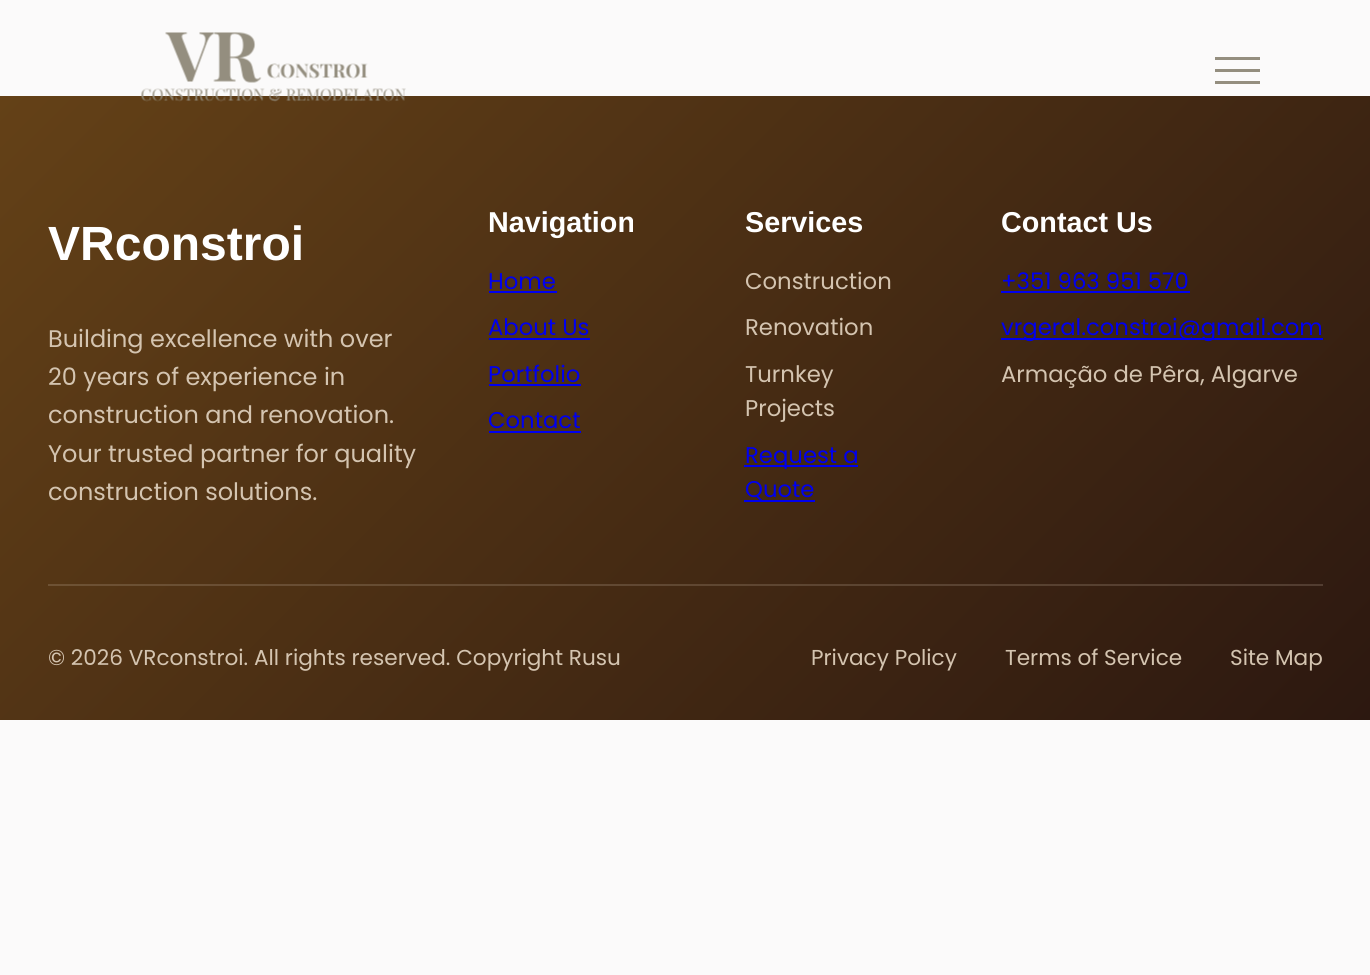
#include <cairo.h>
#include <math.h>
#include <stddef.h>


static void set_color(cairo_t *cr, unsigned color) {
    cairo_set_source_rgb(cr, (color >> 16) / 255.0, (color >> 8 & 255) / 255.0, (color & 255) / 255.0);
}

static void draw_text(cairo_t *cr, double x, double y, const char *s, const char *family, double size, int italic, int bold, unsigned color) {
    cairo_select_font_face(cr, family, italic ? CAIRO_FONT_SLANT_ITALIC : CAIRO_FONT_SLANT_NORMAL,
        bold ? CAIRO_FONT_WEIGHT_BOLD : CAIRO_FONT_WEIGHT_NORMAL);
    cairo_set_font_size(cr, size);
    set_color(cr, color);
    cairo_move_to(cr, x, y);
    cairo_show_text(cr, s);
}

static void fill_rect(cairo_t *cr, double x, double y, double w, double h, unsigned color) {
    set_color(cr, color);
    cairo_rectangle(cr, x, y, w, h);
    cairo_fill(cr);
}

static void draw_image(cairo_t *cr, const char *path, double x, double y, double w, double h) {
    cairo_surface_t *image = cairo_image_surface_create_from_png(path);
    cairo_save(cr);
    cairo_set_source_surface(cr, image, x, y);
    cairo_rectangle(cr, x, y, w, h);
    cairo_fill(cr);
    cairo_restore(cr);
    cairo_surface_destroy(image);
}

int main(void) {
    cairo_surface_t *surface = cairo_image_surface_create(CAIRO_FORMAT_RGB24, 1370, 975);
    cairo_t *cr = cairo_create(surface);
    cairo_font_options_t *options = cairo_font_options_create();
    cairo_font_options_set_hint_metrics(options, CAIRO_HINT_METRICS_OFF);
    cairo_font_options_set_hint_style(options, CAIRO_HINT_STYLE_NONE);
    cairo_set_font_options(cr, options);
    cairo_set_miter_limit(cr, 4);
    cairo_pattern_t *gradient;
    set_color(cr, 0xFBFAFA);
    cairo_paint(cr);
    gradient = cairo_pattern_create_linear(187, -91, 1184, 907);
    cairo_pattern_add_color_stop_rgba(gradient, 0, 0.392, 0.255, 0.09, 1);
    cairo_pattern_add_color_stop_rgba(gradient, 1, 0.173, 0.094, 0.063, 1);
    cairo_set_source(cr, gradient);
    cairo_pattern_destroy(gradient);
    cairo_rectangle(cr, 0, 96, 1370, 624);
    cairo_fill(cr);
    draw_image(cr, "assets/img1.png", 141, 32, 265, 70);
    fill_rect(cr, 1215, 57, 45, 3, 0x948E7F);
    fill_rect(cr, 1215, 69, 45, 3, 0x948E7F);
    fill_rect(cr, 1215, 81, 45, 3, 0x948E7F);
    gradient = cairo_pattern_create_linear(187, -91, 1184, 907);
    cairo_pattern_add_color_stop_rgba(gradient, 0, 0.478, 0.357, 0.212, 1);
    cairo_pattern_add_color_stop_rgba(gradient, 1, 0.306, 0.227, 0.188, 1);
    cairo_set_source(cr, gradient);
    cairo_pattern_destroy(gradient);
    cairo_rectangle(cr, 48, 584, 1275, 2);
    cairo_fill(cr);
    draw_text(cr, 48, 260, "VRconstroi", "Liberation Sans", 48, 0, 1, 0xFFFFFF);
    draw_text(cr, 48, 347, "Building excellence with over", "Poppins", 24, 0, 0, 0xD4C4B0);
    draw_text(cr, 48, 385, "20 years of experience in", "Poppins", 24, 0, 0, 0xD4C4B0);
    draw_text(cr, 48, 423, "construction and renovation.", "Poppins", 24, 0, 0, 0xD4C4B0);
    draw_text(cr, 48, 462, "Your trusted partner for quality", "Poppins", 24, 0, 0, 0xD4C4B0);
    draw_text(cr, 48, 500, "construction solutions.", "Poppins", 24, 0, 0, 0xD4C4B0);
    draw_text(cr, 488, 232, "Navigation", "Liberation Sans", 28.75, 0, 1, 0xFFFFFF);
    draw_text(cr, 488, 289, "Home", "Poppins", 22.75, 0, 0, 0x0000EE);
    fill_rect(cr, 489, 291, 68, 2, 0x0000EE);
    draw_text(cr, 488, 335, "About Us", "Poppins", 22.75, 0, 0, 0x0000EE);
    fill_rect(cr, 489, 338, 101, 2, 0x0000EE);
    draw_text(cr, 488, 382, "Portfolio", "Poppins", 22.75, 0, 0, 0x0000EE);
    fill_rect(cr, 489, 384, 92, 2, 0x0000EE);
    draw_text(cr, 488, 428, "Contact", "Poppins", 22.75, 0, 0, 0x0000EE);
    fill_rect(cr, 489, 431, 92, 2, 0x0000EE);
    draw_text(cr, 745, 232, "Services", "Liberation Sans", 28.75, 0, 1, 0xFFFFFF);
    draw_text(cr, 745, 289, "Construction", "Poppins", 22.75, 0, 0, 0xD4C4B0);
    draw_text(cr, 745, 335, "Renovation", "Poppins", 22.75, 0, 0, 0xD4C4B0);
    draw_text(cr, 745, 382, "Turnkey", "Poppins", 22.75, 0, 0, 0xD4C4B0);
    draw_text(cr, 745, 416, "Projects", "Poppins", 22.75, 0, 0, 0xD4C4B0);
    fill_rect(cr, 744, 465, 114, 2, 0x0000EE);
    draw_text(cr, 745, 463, "Request a", "Poppins", 22.75, 0, 0, 0x0000EE);
    draw_text(cr, 745, 497, "Quote", "Poppins", 22.75, 0, 0, 0x0000EE);
    fill_rect(cr, 744, 500, 71, 2, 0x0000EE);
    draw_text(cr, 1001, 232, "Contact Us", "Liberation Sans", 28.75, 0, 1, 0xFFFFFF);
    draw_text(cr, 1001, 289, "+351 963 951 570", "Poppins", 22.75, 0, 0, 0x0000EE);
    fill_rect(cr, 1001, 291, 189, 2, 0x0000EE);
    fill_rect(cr, 1001, 338, 322, 2, 0x0000EE);
    draw_text(cr, 1001, 335, "vrgeral.constroi@gmail.com", "Poppins", 22.75, 0, 0, 0x0000EE);
    draw_text(cr, 1001, 382, "Armação de Pêra, Algarve", "Poppins", 22.75, 0, 0, 0xD4C4B0);
    draw_text(cr, 48, 665, "© 2026 VRconstroi. All rights reserved. Copyright Rusu", "Poppins", 21.6, 0, 0, 0xD4C4B0);
    draw_text(cr, 811, 665, "Privacy Policy", "Poppins", 21.6, 0, 0, 0xD4C4B0);
    draw_text(cr, 1005, 665, "Terms of Service", "Poppins", 21.6, 0, 0, 0xD4C4B0);
    draw_text(cr, 1230, 665, "Site Map", "Poppins", 21.6, 0, 0, 0xD4C4B0);
    cairo_surface_write_to_png(surface, "output.png");
    cairo_font_options_destroy(options);
    cairo_destroy(cr);
    cairo_surface_destroy(surface);
    return 0;
}
